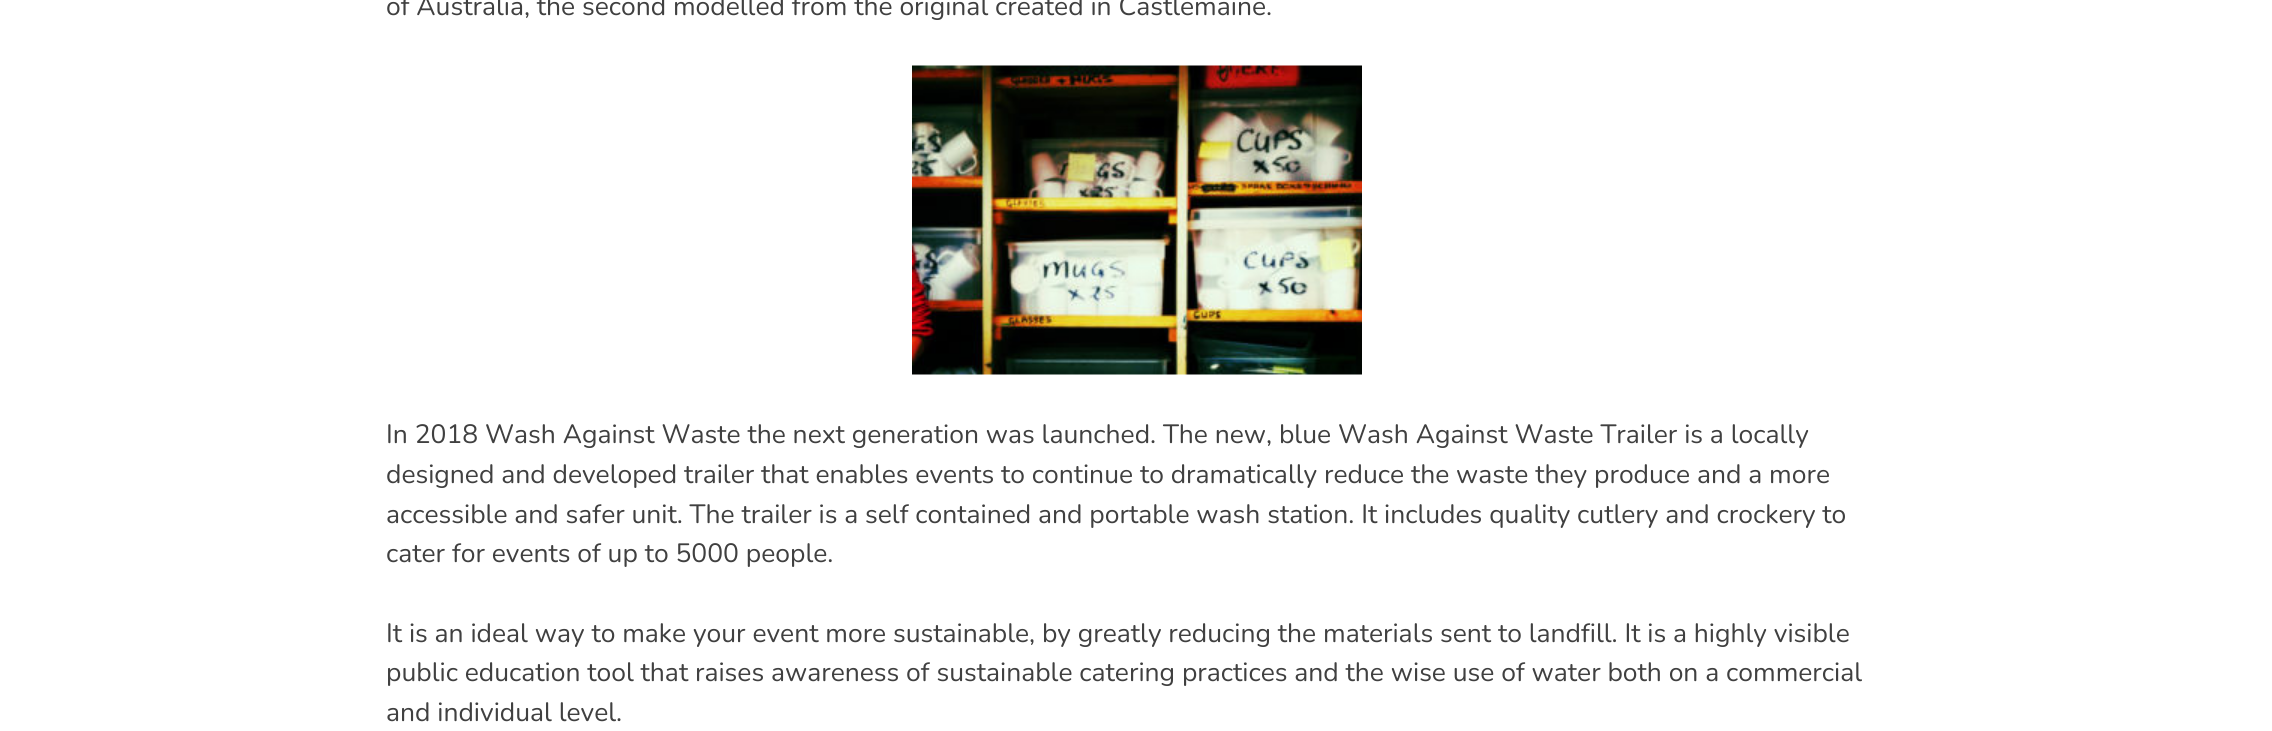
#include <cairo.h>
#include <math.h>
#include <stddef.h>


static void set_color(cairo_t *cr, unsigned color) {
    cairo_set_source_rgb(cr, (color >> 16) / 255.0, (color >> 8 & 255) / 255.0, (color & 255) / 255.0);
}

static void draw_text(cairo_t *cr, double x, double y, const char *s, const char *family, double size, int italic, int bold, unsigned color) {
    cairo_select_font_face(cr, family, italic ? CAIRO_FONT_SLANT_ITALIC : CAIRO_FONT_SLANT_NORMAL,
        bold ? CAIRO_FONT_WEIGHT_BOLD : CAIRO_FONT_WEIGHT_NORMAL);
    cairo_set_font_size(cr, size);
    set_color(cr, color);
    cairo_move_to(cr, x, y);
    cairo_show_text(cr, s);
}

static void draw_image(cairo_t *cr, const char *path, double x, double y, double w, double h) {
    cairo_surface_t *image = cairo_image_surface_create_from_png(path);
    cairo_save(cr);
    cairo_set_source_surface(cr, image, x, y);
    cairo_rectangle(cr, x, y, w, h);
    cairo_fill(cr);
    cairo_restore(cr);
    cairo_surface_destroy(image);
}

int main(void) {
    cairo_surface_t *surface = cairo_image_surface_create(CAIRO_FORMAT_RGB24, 2272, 731);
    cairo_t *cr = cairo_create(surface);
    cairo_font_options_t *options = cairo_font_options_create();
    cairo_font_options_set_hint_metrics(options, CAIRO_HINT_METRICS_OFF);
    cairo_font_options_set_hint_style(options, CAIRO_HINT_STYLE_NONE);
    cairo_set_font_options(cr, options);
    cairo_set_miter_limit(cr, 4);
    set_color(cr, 0xFFFFFF);
    cairo_paint(cr);
    draw_text(cr, 386, 15, "of Australia, the second modelled from the original created in Castlemaine.", "Nunito", 26.45, 0, 0, 0x404040);
    draw_image(cr, "assets/img1.png", 912, 65, 450, 310);
    draw_text(cr, 386, 443, "In 2018 Wash Against Waste the next generation was launched. The new, blue Wash Against Waste Trailer is a locally", "Nunito", 26.45, 0, 0, 0x404040);
    draw_text(cr, 386, 483, "designed and developed trailer that enables events to continue to dramatically reduce the waste they produce and a more", "Nunito", 26.45, 0, 0, 0x404040);
    draw_text(cr, 386, 523, "accessible and safer unit. The trailer is a self contained and portable wash station. It includes quality cutlery and crockery to", "Nunito", 26.45, 0, 0, 0x404040);
    draw_text(cr, 386, 562, "cater for events of up to 5000 people.", "Nunito", 26.45, 0, 0, 0x404040);
    draw_text(cr, 386, 642, "It is an ideal way to make your event more sustainable, by greatly reducing the materials sent to landfill. It is a highly visible", "Nunito", 26.45, 0, 0, 0x404040);
    draw_text(cr, 386, 681, "public education tool that raises awareness of sustainable catering practices and the wise use of water both on a commercial", "Nunito", 26.45, 0, 0, 0x404040);
    draw_text(cr, 386, 721, "and individual level.", "Nunito", 26.45, 0, 0, 0x404040);
    cairo_surface_write_to_png(surface, "output.png");
    cairo_font_options_destroy(options);
    cairo_destroy(cr);
    cairo_surface_destroy(surface);
    return 0;
}
